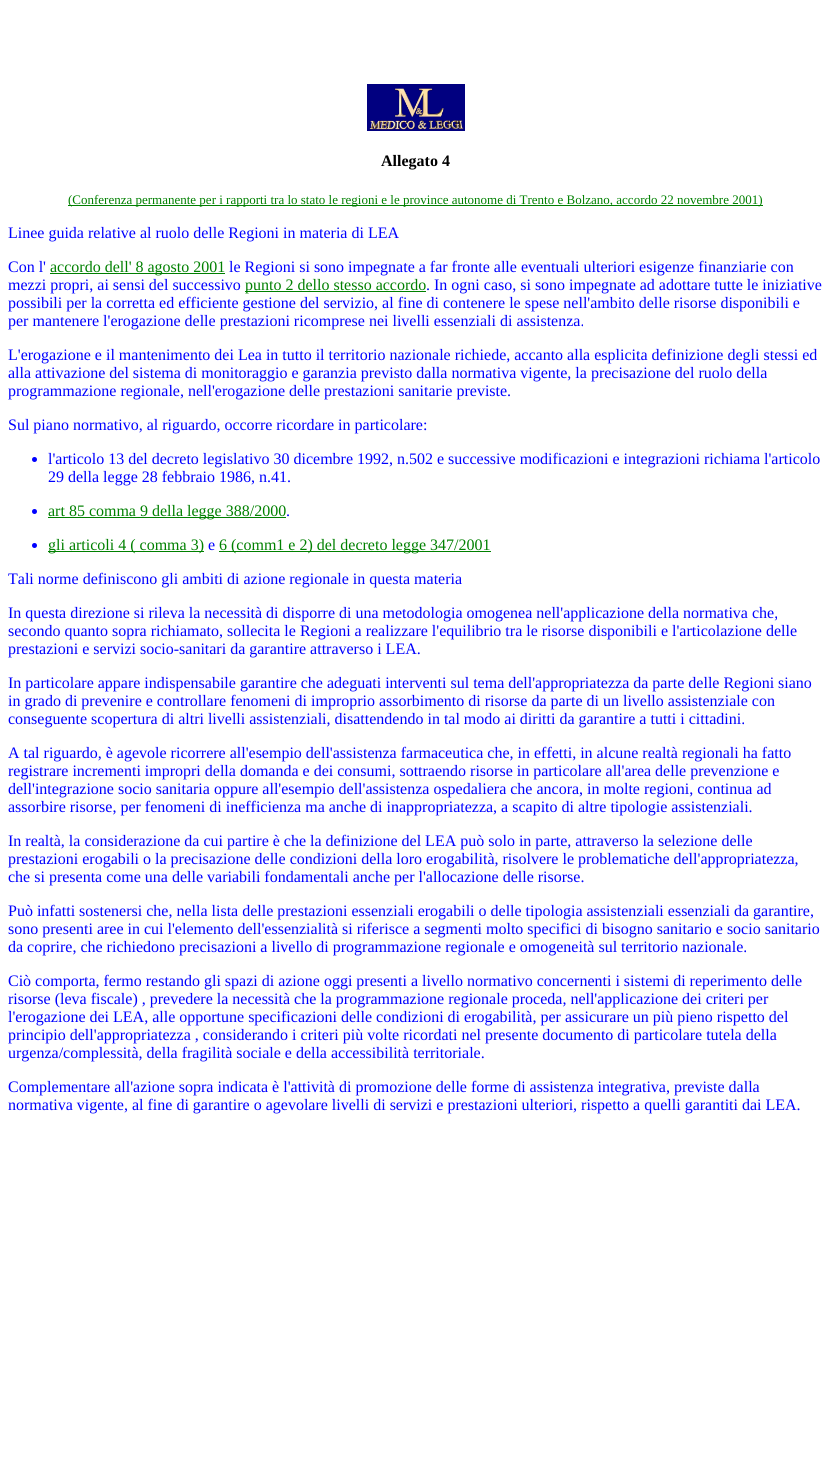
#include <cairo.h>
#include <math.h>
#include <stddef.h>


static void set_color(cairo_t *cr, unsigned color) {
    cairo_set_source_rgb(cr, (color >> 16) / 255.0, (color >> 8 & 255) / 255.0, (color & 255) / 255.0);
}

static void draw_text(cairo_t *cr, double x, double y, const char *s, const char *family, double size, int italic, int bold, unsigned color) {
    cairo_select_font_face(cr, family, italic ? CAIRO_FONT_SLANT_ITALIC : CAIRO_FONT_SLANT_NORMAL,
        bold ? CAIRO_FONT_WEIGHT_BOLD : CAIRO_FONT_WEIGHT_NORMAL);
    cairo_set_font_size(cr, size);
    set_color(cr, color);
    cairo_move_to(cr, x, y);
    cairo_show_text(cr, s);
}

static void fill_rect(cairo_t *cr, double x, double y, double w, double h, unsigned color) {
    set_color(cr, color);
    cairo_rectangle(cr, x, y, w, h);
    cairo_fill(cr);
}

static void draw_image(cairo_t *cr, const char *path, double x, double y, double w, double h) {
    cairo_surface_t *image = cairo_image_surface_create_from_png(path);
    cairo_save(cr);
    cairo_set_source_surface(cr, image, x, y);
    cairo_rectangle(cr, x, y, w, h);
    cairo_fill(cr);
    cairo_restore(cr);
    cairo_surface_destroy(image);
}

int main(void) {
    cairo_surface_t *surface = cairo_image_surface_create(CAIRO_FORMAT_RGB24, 831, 1457);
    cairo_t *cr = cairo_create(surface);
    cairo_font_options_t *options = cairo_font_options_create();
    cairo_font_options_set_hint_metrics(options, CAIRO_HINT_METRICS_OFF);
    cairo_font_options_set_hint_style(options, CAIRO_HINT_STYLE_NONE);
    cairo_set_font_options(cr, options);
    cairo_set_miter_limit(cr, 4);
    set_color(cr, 0xFFFFFF);
    cairo_paint(cr);
    draw_image(cr, "assets/img1.png", 367, 84, 98, 47);
    draw_text(cr, 381, 166, "Allegato 4", "Liberation Serif", 16, 0, 1, 0x000000);
    fill_rect(cr, 68, 205, 695, 1, 0x008000);
    draw_text(cr, 68, 204, "(Conferenza permanente per i rapporti tra lo stato le regioni e le province autonome di Trento e Bolzano, accordo 22 novembre 2001)", "Liberation Serif", 13, 0, 0, 0x008000);
    draw_text(cr, 8, 238, "Linee guida relative al ruolo delle Regioni in materia di LEA", "Liberation Serif", 16, 0, 0, 0x0000FF);
    draw_text(cr, 8, 272, "Con l'", "Liberation Serif", 16, 0, 0, 0x0000FF);
    fill_rect(cr, 50, 273, 175, 1, 0x008000);
    draw_text(cr, 50, 272, "accordo dell' 8 agosto 2001", "Liberation Serif", 16, 0, 0, 0x008000);
    draw_text(cr, 229, 272, "le Regioni si sono impegnate a far fronte alle eventuali ulteriori esigenze finanziarie con", "Liberation Serif", 16, 0, 0, 0x0000FF);
    draw_text(cr, 8, 290, "mezzi propri, ai sensi del successivo", "Liberation Serif", 16, 0, 0, 0x0000FF);
    fill_rect(cr, 245, 291, 181, 1, 0x008000);
    draw_text(cr, 245, 290, "punto 2 dello stesso accordo", "Liberation Serif", 16, 0, 0, 0x008000);
    draw_text(cr, 426, 290, ". In ogni caso, si sono impegnate ad adottare tutte le iniziative", "Liberation Serif", 16, 0, 0, 0x0000FF);
    draw_text(cr, 8, 308, "possibili per la corretta ed efficiente gestione del servizio, al fine di contenere le spese nell'ambito delle risorse disponibili e", "Liberation Serif", 16, 0, 0, 0x0000FF);
    draw_text(cr, 8, 326, "per mantenere l'erogazione delle prestazioni ricomprese nei livelli essenziali di assistenza.", "Liberation Serif", 16, 0, 0, 0x0000FF);
    draw_text(cr, 8, 360, "L'erogazione e il mantenimento dei Lea in tutto il territorio nazionale richiede, accanto alla esplicita definizione degli stessi ed", "Liberation Serif", 16, 0, 0, 0x0000FF);
    draw_text(cr, 8, 378, "alla attivazione del sistema di monitoraggio e garanzia previsto dalla normativa vigente, la precisazione del ruolo della", "Liberation Serif", 16, 0, 0, 0x0000FF);
    draw_text(cr, 8, 396, "programmazione regionale, nell'erogazione delle prestazioni sanitarie previste.", "Liberation Serif", 16, 0, 0, 0x0000FF);
    draw_text(cr, 8, 430, "Sul piano normativo, al riguardo, occorre ricordare in particolare:", "Liberation Serif", 16, 0, 0, 0x0000FF);
    cairo_new_path(cr);
    cairo_arc(cr, 34.5, 459.5, 2.5, 0, 2 * M_PI);
    cairo_fill(cr);
    draw_text(cr, 48, 464, "l'articolo 13 del decreto legislativo 30 dicembre 1992, n.502 e successive modificazioni e integrazioni richiama l'articolo", "Liberation Serif", 16, 0, 0, 0x0000FF);
    draw_text(cr, 48, 482, "29 della legge 28 febbraio 1986, n.41.", "Liberation Serif", 16, 0, 0, 0x0000FF);
    cairo_new_path(cr);
    cairo_arc(cr, 34.5, 511.5, 2.5, 0, 2 * M_PI);
    cairo_fill(cr);
    fill_rect(cr, 48, 517, 238, 1, 0x008000);
    draw_text(cr, 48, 516, "art 85 comma 9 della legge 388/2000", "Liberation Serif", 16, 0, 0, 0x008000);
    draw_text(cr, 286, 516, ".", "Liberation Serif", 16, 0, 0, 0x0000FF);
    cairo_new_path(cr);
    cairo_arc(cr, 34.5, 545.5, 2.5, 0, 2 * M_PI);
    cairo_fill(cr);
    fill_rect(cr, 48, 551, 156, 1, 0x008000);
    draw_text(cr, 48, 550, "gli articoli 4 ( comma 3)", "Liberation Serif", 16, 0, 0, 0x008000);
    draw_text(cr, 208, 550, "e", "Liberation Serif", 16, 0, 0, 0x0000FF);
    fill_rect(cr, 219, 551, 272, 1, 0x008000);
    draw_text(cr, 219, 550, "6 (comm1 e 2) del decreto legge 347/2001", "Liberation Serif", 16, 0, 0, 0x008000);
    draw_text(cr, 8, 584, "Tali norme definiscono gli ambiti di azione regionale in questa materia", "Liberation Serif", 16, 0, 0, 0x0000FF);
    draw_text(cr, 8, 618, "In questa direzione si rileva la necessità di disporre di una metodologia omogenea nell'applicazione della normativa che,", "Liberation Serif", 16, 0, 0, 0x0000FF);
    draw_text(cr, 8, 636, "secondo quanto sopra richiamato, sollecita le Regioni a realizzare l'equilibrio tra le risorse disponibili e l'articolazione delle", "Liberation Serif", 16, 0, 0, 0x0000FF);
    draw_text(cr, 8, 654, "prestazioni e servizi socio-sanitari da garantire attraverso i LEA.", "Liberation Serif", 16, 0, 0, 0x0000FF);
    draw_text(cr, 8, 688, "In particolare appare indispensabile garantire che adeguati interventi sul tema dell'appropriatezza da parte delle Regioni siano", "Liberation Serif", 16, 0, 0, 0x0000FF);
    draw_text(cr, 8, 706, "in grado di prevenire e controllare fenomeni di improprio assorbimento di risorse da parte di un livello assistenziale con", "Liberation Serif", 16, 0, 0, 0x0000FF);
    draw_text(cr, 8, 724, "conseguente scopertura di altri livelli assistenziali, disattendendo in tal modo ai diritti da garantire a tutti i cittadini.", "Liberation Serif", 16, 0, 0, 0x0000FF);
    draw_text(cr, 8, 758, "A tal riguardo, è agevole ricorrere all'esempio dell'assistenza farmaceutica che, in effetti, in alcune realtà regionali ha fatto", "Liberation Serif", 16, 0, 0, 0x0000FF);
    draw_text(cr, 8, 776, "registrare incrementi impropri della domanda e dei consumi, sottraendo risorse in particolare all'area delle prevenzione e", "Liberation Serif", 16, 0, 0, 0x0000FF);
    draw_text(cr, 8, 794, "dell'integrazione socio sanitaria oppure all'esempio dell'assistenza ospedaliera che ancora, in molte regioni, continua ad", "Liberation Serif", 16, 0, 0, 0x0000FF);
    draw_text(cr, 8, 812, "assorbire risorse, per fenomeni di inefficienza ma anche di inappropriatezza, a scapito di altre tipologie assistenziali.", "Liberation Serif", 16, 0, 0, 0x0000FF);
    draw_text(cr, 8, 846, "In realtà, la considerazione da cui partire è che la definizione del LEA può solo in parte, attraverso la selezione delle", "Liberation Serif", 16, 0, 0, 0x0000FF);
    draw_text(cr, 8, 864, "prestazioni erogabili o la precisazione delle condizioni della loro erogabilità, risolvere le problematiche dell'appropriatezza,", "Liberation Serif", 16, 0, 0, 0x0000FF);
    draw_text(cr, 8, 882, "che si presenta come una delle variabili fondamentali anche per l'allocazione delle risorse.", "Liberation Serif", 16, 0, 0, 0x0000FF);
    draw_text(cr, 8, 916, "Può infatti sostenersi che, nella lista delle prestazioni essenziali erogabili o delle tipologia assistenziali essenziali da garantire,", "Liberation Serif", 16, 0, 0, 0x0000FF);
    draw_text(cr, 8, 934, "sono presenti aree in cui l'elemento dell'essenzialità si riferisce a segmenti molto specifici di bisogno sanitario e socio sanitario", "Liberation Serif", 16, 0, 0, 0x0000FF);
    draw_text(cr, 8, 952, "da coprire, che richiedono precisazioni a livello di programmazione regionale e omogeneità sul territorio nazionale.", "Liberation Serif", 16, 0, 0, 0x0000FF);
    draw_text(cr, 8, 986, "Ciò comporta, fermo restando gli spazi di azione oggi presenti a livello normativo concernenti i sistemi di reperimento delle", "Liberation Serif", 16, 0, 0, 0x0000FF);
    draw_text(cr, 8, 1004, "risorse (leva fiscale) , prevedere la necessità che la programmazione regionale proceda, nell'applicazione dei criteri per", "Liberation Serif", 16, 0, 0, 0x0000FF);
    draw_text(cr, 8, 1022, "l'erogazione dei LEA, alle opportune specificazioni delle condizioni di erogabilità, per assicurare un più pieno rispetto del", "Liberation Serif", 16, 0, 0, 0x0000FF);
    draw_text(cr, 8, 1040, "principio dell'appropriatezza , considerando i criteri più volte ricordati nel presente documento di particolare tutela della", "Liberation Serif", 16, 0, 0, 0x0000FF);
    draw_text(cr, 8, 1058, "urgenza/complessità, della fragilità sociale e della accessibilità territoriale.", "Liberation Serif", 16, 0, 0, 0x0000FF);
    draw_text(cr, 8, 1092, "Complementare all'azione sopra indicata è l'attività di promozione delle forme di assistenza integrativa, previste dalla", "Liberation Serif", 16, 0, 0, 0x0000FF);
    draw_text(cr, 8, 1110, "normativa vigente, al fine di garantire o agevolare livelli di servizi e prestazioni ulteriori, rispetto a quelli garantiti dai LEA.", "Liberation Serif", 16, 0, 0, 0x0000FF);
    cairo_surface_write_to_png(surface, "output.png");
    cairo_font_options_destroy(options);
    cairo_destroy(cr);
    cairo_surface_destroy(surface);
    return 0;
}
